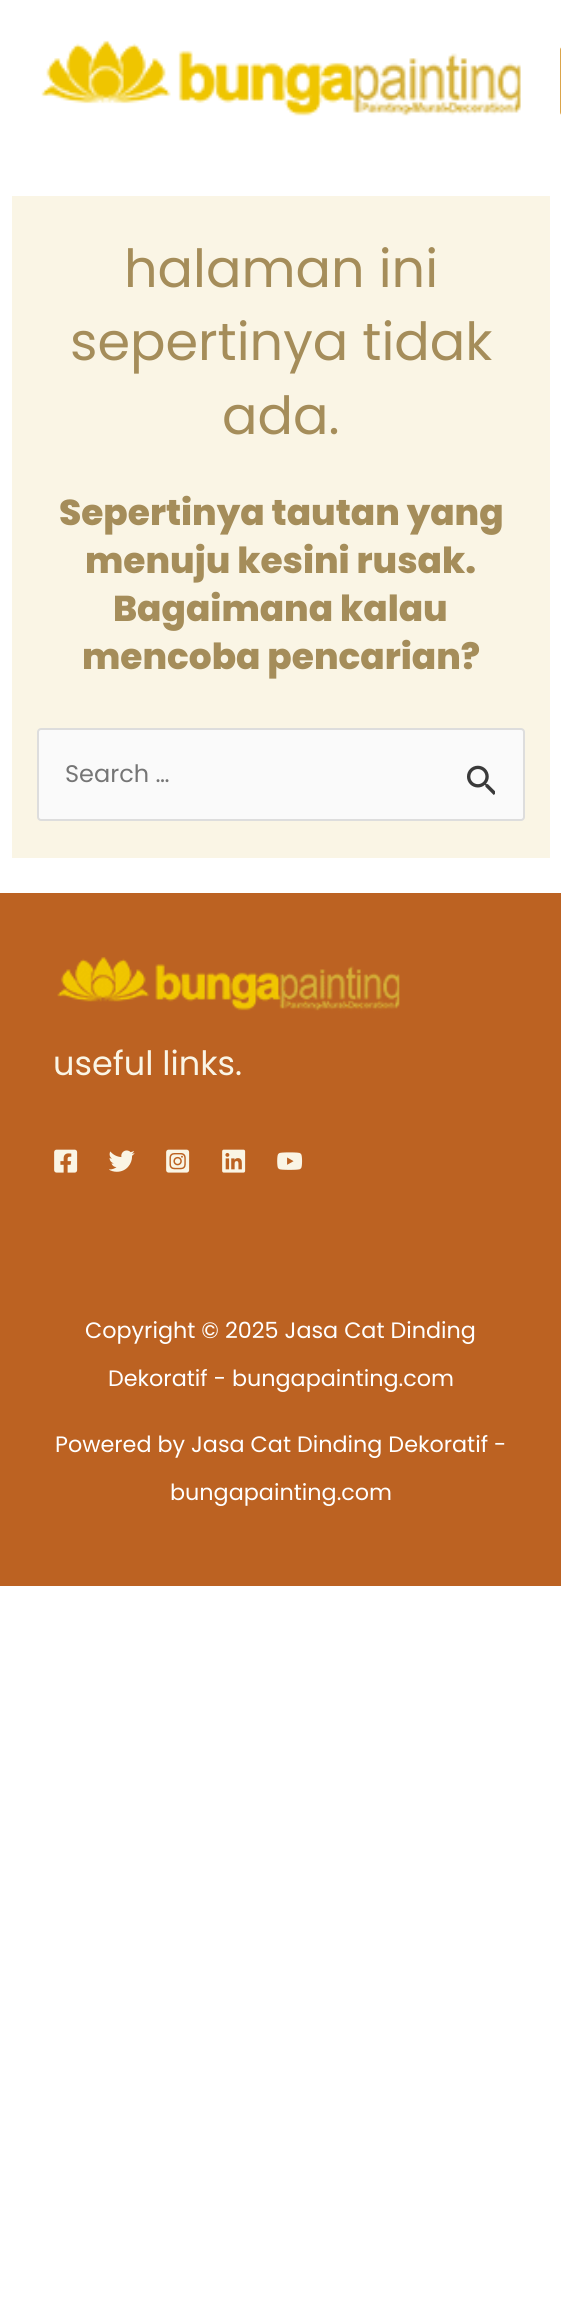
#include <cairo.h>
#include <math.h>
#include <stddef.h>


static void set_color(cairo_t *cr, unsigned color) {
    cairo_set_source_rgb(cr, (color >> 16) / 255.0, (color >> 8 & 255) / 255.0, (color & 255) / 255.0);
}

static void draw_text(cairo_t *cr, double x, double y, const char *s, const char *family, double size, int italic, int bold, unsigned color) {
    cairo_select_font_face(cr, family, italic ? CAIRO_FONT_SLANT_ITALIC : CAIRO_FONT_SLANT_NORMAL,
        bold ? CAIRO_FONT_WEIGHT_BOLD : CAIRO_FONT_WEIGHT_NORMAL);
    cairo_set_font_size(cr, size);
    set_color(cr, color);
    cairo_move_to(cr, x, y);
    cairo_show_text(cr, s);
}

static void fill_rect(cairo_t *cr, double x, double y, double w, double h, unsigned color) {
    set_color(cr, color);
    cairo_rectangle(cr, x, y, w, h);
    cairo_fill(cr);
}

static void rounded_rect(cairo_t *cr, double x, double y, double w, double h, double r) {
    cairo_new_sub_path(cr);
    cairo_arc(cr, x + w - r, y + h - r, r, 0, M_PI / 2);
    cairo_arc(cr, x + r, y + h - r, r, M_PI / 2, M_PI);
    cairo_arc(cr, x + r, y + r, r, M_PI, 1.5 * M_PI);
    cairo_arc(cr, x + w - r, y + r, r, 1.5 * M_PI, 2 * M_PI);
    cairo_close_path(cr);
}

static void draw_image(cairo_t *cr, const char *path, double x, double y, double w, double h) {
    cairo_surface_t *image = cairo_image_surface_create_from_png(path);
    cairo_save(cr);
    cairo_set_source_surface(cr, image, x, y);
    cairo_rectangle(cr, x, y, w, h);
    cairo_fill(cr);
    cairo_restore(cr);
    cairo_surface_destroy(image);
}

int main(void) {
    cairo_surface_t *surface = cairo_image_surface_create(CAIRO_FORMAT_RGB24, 561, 2322);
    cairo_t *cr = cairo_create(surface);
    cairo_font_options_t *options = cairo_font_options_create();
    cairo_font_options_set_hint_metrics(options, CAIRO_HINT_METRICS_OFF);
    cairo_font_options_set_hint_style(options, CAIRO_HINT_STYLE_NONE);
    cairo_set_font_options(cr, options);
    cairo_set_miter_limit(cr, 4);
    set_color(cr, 0xFFFFFF);
    cairo_paint(cr);
    draw_image(cr, "assets/img1.png", 41, 40, 480, 76);
    set_color(cr, 0xDCA54A);
    rounded_rect(cr, 560, 46, 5, 70, 4);
    cairo_fill(cr);
    fill_rect(cr, 12, 196, 538, 662, 0xFAF5E5);
    draw_text(cr, 124, 287, "halaman ini", "Poppins", 52.5, 0, 0, 0xA58D5A);
    draw_text(cr, 70, 360, "sepertinya tidak", "Poppins", 52.5, 0, 0, 0xA58D5A);
    draw_text(cr, 222, 434, "ada.", "Poppins", 52.5, 0, 0, 0xA58D5A);
    draw_text(cr, 59, 525, "Sepertinya tautan yang", "Poppins ExtraBold", 35.9, 0, 0, 0xA58D5A);
    draw_text(cr, 85, 573, "menuju kesini rusak.", "Poppins ExtraBold", 35.9, 0, 0, 0xA58D5A);
    draw_text(cr, 113, 621, "Bagaimana kalau", "Poppins ExtraBold", 35.9, 0, 0, 0xA58D5A);
    draw_text(cr, 82, 669, "mencoba pencarian?", "Poppins ExtraBold", 35.9, 0, 0, 0xA58D5A);
    set_color(cr, 0xFAFAFA);
    rounded_rect(cr, 38, 729, 486, 91, 3);
    cairo_fill_preserve(cr);
    set_color(cr, 0xDDDDDD);
    cairo_stroke(cr);
    draw_text(cr, 65, 782, "Search …", "Poppins", 24, 0, 0, 0x757575);
    draw_image(cr, "assets/img2.png", 467, 765, 28, 30);
    fill_rect(cr, 0, 893, 561, 693, 0xBC6222);
    draw_image(cr, "assets/img3.png", 57, 957, 343, 54);
    draw_text(cr, 53, 1075, "useful links.", "Poppins", 33.5, 0, 0, 0xFAF5E5);
    draw_image(cr, "assets/img4.png", 54, 1149, 24, 24);
    draw_image(cr, "assets/img5.png", 109, 1150, 26, 22);
    draw_image(cr, "assets/img6.png", 166, 1149, 24, 24);
    draw_image(cr, "assets/img7.png", 222, 1149, 24, 24);
    draw_image(cr, "assets/img8.png", 277, 1152, 26, 18);
    draw_text(cr, 85, 1338, "Copyright © 2025 Jasa Cat Dinding", "Poppins", 22.3, 0, 0, 0xFFFFFF);
    draw_text(cr, 108, 1386, "Dekoratif - bungapainting.com", "Poppins", 22.3, 0, 0, 0xFFFFFF);
    draw_text(cr, 55, 1452, "Powered by Jasa Cat Dinding Dekoratif -", "Poppins", 22.3, 0, 0, 0xFFFFFF);
    draw_text(cr, 170, 1500, "bungapainting.com", "Poppins", 22.3, 0, 0, 0xFFFFFF);
    cairo_surface_write_to_png(surface, "output.png");
    cairo_font_options_destroy(options);
    cairo_destroy(cr);
    cairo_surface_destroy(surface);
    return 0;
}
